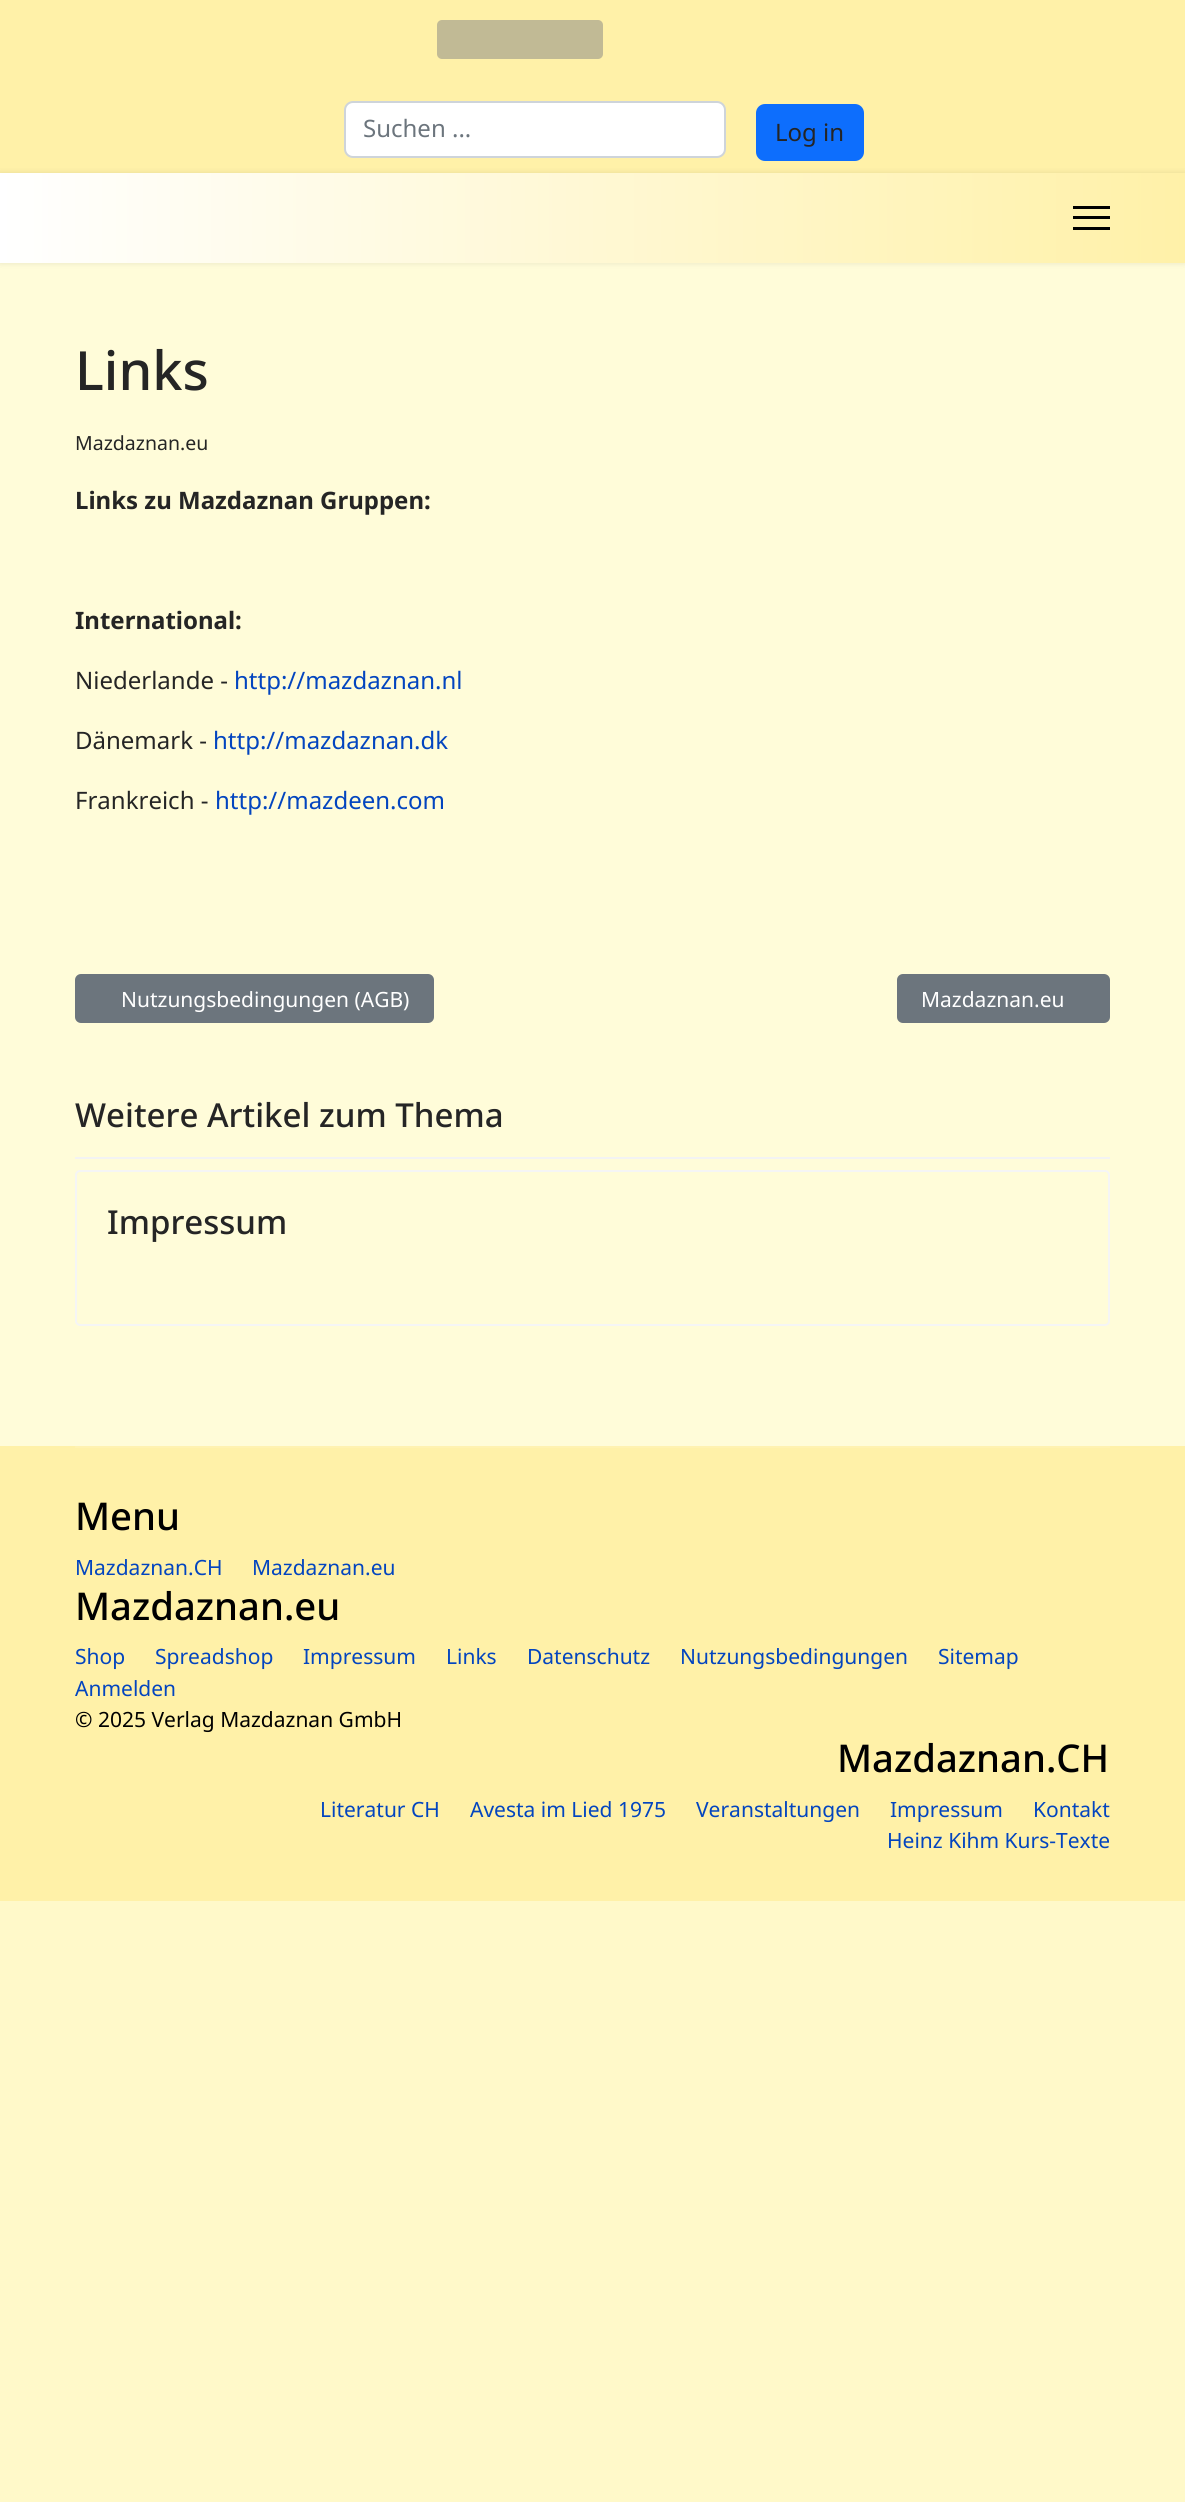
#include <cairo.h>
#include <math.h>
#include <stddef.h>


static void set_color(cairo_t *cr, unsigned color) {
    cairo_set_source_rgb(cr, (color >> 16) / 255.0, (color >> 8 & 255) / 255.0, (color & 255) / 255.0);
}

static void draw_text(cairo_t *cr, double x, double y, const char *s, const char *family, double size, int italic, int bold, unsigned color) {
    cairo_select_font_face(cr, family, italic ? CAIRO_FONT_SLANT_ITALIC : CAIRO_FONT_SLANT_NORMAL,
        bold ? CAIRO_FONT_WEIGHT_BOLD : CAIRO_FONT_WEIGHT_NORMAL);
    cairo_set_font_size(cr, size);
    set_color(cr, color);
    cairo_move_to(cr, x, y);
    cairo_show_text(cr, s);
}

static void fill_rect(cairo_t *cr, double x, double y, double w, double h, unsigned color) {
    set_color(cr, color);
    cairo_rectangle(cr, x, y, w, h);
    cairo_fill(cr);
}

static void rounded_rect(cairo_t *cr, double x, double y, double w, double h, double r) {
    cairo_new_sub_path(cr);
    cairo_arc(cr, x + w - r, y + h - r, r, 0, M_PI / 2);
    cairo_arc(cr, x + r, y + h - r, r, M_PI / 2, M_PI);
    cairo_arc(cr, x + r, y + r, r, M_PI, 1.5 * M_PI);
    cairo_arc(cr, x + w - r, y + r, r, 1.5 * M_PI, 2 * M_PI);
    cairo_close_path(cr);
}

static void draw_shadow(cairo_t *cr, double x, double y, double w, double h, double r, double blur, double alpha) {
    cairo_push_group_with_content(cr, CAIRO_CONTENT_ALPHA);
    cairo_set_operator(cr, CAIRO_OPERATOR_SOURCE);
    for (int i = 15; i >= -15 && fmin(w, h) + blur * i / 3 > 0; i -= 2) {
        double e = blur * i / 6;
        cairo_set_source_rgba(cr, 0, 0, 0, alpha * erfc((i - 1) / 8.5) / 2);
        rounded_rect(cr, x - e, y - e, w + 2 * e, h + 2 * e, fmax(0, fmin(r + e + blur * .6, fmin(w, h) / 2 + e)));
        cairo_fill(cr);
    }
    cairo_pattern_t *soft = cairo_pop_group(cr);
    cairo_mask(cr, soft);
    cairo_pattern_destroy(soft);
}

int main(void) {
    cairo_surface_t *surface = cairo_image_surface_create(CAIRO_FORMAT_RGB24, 1185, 2502);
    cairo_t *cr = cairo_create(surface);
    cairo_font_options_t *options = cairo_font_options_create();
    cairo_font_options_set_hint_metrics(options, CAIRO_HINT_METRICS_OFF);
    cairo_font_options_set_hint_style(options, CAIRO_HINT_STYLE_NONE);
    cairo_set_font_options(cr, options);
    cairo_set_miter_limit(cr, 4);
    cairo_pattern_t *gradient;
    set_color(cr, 0xFFF9C9);
    cairo_paint(cr);
    fill_rect(cr, 0, 0, 1185, 173, 0xFFF1A8);
    set_color(cr, 0xC1BA95);
    rounded_rect(cr, 437, 20, 166, 39, 5);
    cairo_fill(cr);
    set_color(cr, 0xFFFFFF);
    rounded_rect(cr, 345, 102, 380, 55, 8);
    cairo_fill_preserve(cr);
    set_color(cr, 0xCED4DA);
    cairo_stroke(cr);
    draw_text(cr, 363, 137, "Suchen ...", "Noto Sans", 24, 0, 0, 0x6C757D);
    set_color(cr, 0x0D6EFD);
    rounded_rect(cr, 757, 105, 106, 55, 8);
    cairo_fill_preserve(cr);
    cairo_stroke(cr);
    draw_text(cr, 775, 141, "Log in", "Noto Sans", 24, 0, 0, 0x252525);
    fill_rect(cr, 0, 263, 1185, 1183, 0xFFFCD9);
    set_color(cr, 0x000000);
    draw_shadow(cr, 0, 173, 1185, 90, 0, 3, 0.1);
    gradient = cairo_pattern_create_linear(0, 218, 1185, 217);
    cairo_pattern_add_color_stop_rgba(gradient, 0, 1, 1, 1, 1);
    cairo_pattern_add_color_stop_rgba(gradient, 1, 1, 0.945, 0.659, 1);
    cairo_set_source(cr, gradient);
    cairo_pattern_destroy(gradient);
    cairo_rectangle(cr, 0, 173, 1185, 90);
    cairo_fill(cr);
    fill_rect(cr, 1073, 206, 37, 3, 0x000000);
    fill_rect(cr, 1073, 216, 37, 3, 0x000000);
    fill_rect(cr, 1073, 227, 37, 3, 0x000000);
    draw_text(cr, 75, 390, "Links", "Noto Sans Medium", 54, 0, 0, 0x252525);
    draw_text(cr, 75, 450, "Mazdaznan.eu", "Noto Sans", 19.5, 0, 0, 0x252525);
    draw_text(cr, 75, 509, "Links zu Mazdaznan Gruppen:", "Noto Sans", 24, 0, 1, 0x252525);
    draw_text(cr, 75, 629, "International:", "Noto Sans", 24, 0, 1, 0x252525);
    draw_text(cr, 75, 689, "Niederlande -", "Noto Sans", 24, 0, 0, 0x252525);
    draw_text(cr, 234, 689, "http://mazdaznan.nl", "Noto Sans", 24, 0, 0, 0x0345BF);
    draw_text(cr, 75, 749, "Dänemark -", "Noto Sans", 24, 0, 0, 0x252525);
    draw_text(cr, 213, 749, "http://mazdaznan.dk", "Noto Sans", 24, 0, 0, 0x0345BF);
    draw_text(cr, 75, 809, "Frankreich -", "Noto Sans", 24, 0, 0, 0x252525);
    draw_text(cr, 215, 809, "http://mazdeen.com", "Noto Sans", 24, 0, 0, 0x0345BF);
    set_color(cr, 0x6C757D);
    rounded_rect(cr, 76, 975, 357, 47, 5);
    cairo_fill_preserve(cr);
    cairo_stroke(cr);
    draw_text(cr, 121, 1007, "Nutzungsbedingungen (AGB)", "Noto Sans", 21, 0, 0, 0xFFFFFF);
    set_color(cr, 0x6C757D);
    rounded_rect(cr, 898, 975, 211, 47, 5);
    cairo_fill_preserve(cr);
    cairo_stroke(cr);
    draw_text(cr, 921, 1007, "Mazdaznan.eu", "Noto Sans", 21, 0, 0, 0xFFFFFF);
    fill_rect(cr, 75, 1157, 1035, 2, 0xF3F3F3);
    draw_text(cr, 75, 1127, "Weitere Artikel zum Thema", "Noto Sans Medium", 33, 0, 0, 0x252525);
    rounded_rect(cr, 76, 1171, 1033, 154, 4);
    set_color(cr, 0xF5F5F5);
    cairo_stroke(cr);
    draw_text(cr, 107, 1234, "Impressum", "Noto Sans Medium", 33, 0, 0, 0x252525);
    fill_rect(cr, 0, 1446, 1185, 455, 0xFFF1A8);
    fill_rect(cr, 75, 1446, 1035, 2, 0xFFF2B1);
    draw_text(cr, 75, 1530, "Menu", "Noto Sans Medium", 38.25, 0, 0, 0x000000);
    draw_text(cr, 75, 1575, "Mazdaznan.CH", "Noto Sans", 21, 0, 0, 0x0345BF);
    draw_text(cr, 252, 1575, "Mazdaznan.eu", "Noto Sans", 21, 0, 0, 0x0345BF);
    draw_text(cr, 75, 1620, "Mazdaznan.eu", "Noto Sans Medium", 38.25, 0, 0, 0x000000);
    draw_text(cr, 75, 1664, "Shop", "Noto Sans", 21, 0, 0, 0x0345BF);
    draw_text(cr, 155, 1664, "Spreadshop", "Noto Sans", 21, 0, 0, 0x0345BF);
    draw_text(cr, 303, 1664, "Impressum", "Noto Sans", 21, 0, 0, 0x0345BF);
    draw_text(cr, 446, 1664, "Links", "Noto Sans", 21, 0, 0, 0x0345BF);
    draw_text(cr, 527, 1664, "Datenschutz", "Noto Sans", 21, 0, 0, 0x0345BF);
    draw_text(cr, 680, 1664, "Nutzungsbedingungen", "Noto Sans", 21, 0, 0, 0x0345BF);
    draw_text(cr, 938, 1664, "Sitemap", "Noto Sans", 21, 0, 0, 0x0345BF);
    draw_text(cr, 75, 1696, "Anmelden", "Noto Sans", 21, 0, 0, 0x0345BF);
    draw_text(cr, 75, 1727, "© 2025 Verlag Mazdaznan GmbH", "Noto Sans", 21, 0, 0, 0x000000);
    draw_text(cr, 837, 1772, "Mazdaznan.CH", "Noto Sans Medium", 38.25, 0, 0, 0x000000);
    draw_text(cr, 320, 1817, "Literatur CH", "Noto Sans", 21, 0, 0, 0x0345BF);
    draw_text(cr, 470, 1817, "Avesta im Lied 1975", "Noto Sans", 21, 0, 0, 0x0345BF);
    draw_text(cr, 696, 1817, "Veranstaltungen", "Noto Sans", 21, 0, 0, 0x0345BF);
    draw_text(cr, 890, 1817, "Impressum", "Noto Sans", 21, 0, 0, 0x0345BF);
    draw_text(cr, 1033, 1817, "Kontakt", "Noto Sans", 21, 0, 0, 0x0345BF);
    draw_text(cr, 887, 1848, "Heinz Kihm Kurs-Texte", "Noto Sans", 21, 0, 0, 0x0345BF);
    cairo_surface_write_to_png(surface, "output.png");
    cairo_font_options_destroy(options);
    cairo_destroy(cr);
    cairo_surface_destroy(surface);
    return 0;
}
